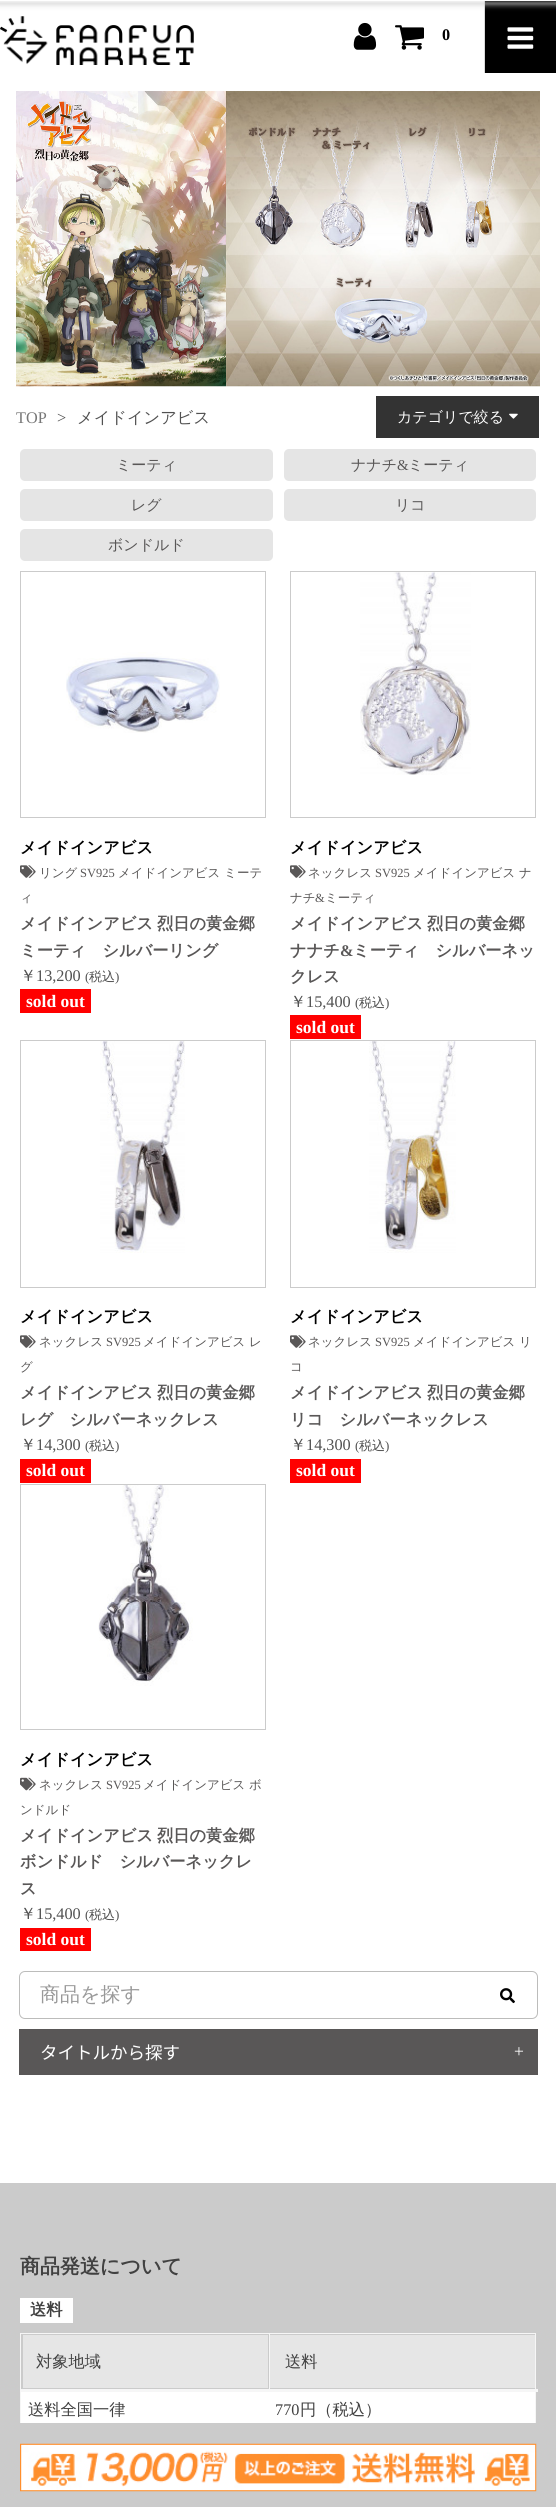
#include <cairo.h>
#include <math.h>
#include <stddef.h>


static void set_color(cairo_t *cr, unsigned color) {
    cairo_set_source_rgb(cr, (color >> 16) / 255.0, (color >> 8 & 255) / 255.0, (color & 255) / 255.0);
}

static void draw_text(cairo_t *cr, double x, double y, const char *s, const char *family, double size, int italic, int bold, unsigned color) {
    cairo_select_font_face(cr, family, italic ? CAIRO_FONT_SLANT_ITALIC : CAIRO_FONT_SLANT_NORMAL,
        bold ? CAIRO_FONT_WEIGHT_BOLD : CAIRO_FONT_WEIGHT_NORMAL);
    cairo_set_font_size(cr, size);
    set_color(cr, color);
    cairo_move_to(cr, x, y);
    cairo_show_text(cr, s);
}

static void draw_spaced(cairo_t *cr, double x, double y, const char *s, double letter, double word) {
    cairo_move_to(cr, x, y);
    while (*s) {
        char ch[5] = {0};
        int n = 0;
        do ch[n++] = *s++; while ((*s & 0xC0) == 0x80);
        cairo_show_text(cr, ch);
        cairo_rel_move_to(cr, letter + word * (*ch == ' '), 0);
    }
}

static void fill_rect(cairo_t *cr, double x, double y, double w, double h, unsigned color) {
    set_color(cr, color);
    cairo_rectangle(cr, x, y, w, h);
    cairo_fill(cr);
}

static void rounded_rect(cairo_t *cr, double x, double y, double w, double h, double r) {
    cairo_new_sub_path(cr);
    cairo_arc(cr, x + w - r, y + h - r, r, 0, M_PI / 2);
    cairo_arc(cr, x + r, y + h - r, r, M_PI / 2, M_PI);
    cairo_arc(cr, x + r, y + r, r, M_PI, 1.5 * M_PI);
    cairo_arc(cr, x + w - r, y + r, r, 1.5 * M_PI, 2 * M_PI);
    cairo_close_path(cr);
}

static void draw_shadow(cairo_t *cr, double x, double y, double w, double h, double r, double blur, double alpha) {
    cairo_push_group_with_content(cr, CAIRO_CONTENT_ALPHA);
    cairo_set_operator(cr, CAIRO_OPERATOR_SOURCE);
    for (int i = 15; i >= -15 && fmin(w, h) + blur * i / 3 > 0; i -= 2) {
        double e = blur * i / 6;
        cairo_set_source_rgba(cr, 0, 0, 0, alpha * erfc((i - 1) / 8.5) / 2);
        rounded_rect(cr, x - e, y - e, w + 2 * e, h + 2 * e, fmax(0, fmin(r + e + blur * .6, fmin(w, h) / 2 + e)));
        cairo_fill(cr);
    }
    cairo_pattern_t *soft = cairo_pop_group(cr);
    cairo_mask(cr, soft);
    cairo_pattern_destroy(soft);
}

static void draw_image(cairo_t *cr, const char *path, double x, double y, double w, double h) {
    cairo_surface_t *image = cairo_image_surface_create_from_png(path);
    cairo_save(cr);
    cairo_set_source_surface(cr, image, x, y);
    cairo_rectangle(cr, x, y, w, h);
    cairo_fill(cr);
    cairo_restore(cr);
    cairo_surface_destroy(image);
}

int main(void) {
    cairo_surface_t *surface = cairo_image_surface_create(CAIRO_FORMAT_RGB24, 556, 2507);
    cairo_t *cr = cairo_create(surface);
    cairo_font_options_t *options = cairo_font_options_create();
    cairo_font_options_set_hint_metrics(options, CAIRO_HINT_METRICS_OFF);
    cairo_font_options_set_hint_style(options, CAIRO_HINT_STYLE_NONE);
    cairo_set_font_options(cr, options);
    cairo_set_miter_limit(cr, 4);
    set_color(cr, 0xFFFFFF);
    cairo_paint(cr);
    fill_rect(cr, 485, 1, 71, 72, 0x000000);
    fill_rect(cr, 484, 0, 1, 73, 0xDADADA);
    set_color(cr, 0xCCCCCC);
    draw_shadow(cr, 0, 3, 556, 1, 0, 3, 1);
    fill_rect(cr, 0, 0, 556, 1, 0xFFFFFF);
    draw_image(cr, "assets/img1.png", 0, 16, 194, 49);
    draw_image(cr, "assets/img2.png", 353, 22, 24, 28);
    draw_image(cr, "assets/img3.png", 395, 25, 29, 25);
    draw_text(cr, 442, 40, "0", "Liberation Serif", 16.25, 0, 1, 0x000000);
    draw_image(cr, "assets/img4.png", 507, 27, 27, 22);
    draw_image(cr, "assets/img5.png", 16, 91, 524, 296);
    draw_text(cr, 16, 423, "TOP", "Liberation Serif", 16.25, 0, 0, 0x777777);
    draw_text(cr, 57, 423, ">", "Liberation Serif", 16.25, 0, 0, 0x515151);
    draw_text(cr, 77, 423, "メイドインアビス", "WenQuanYi Zen Hei Medium", 16.25, 0, 0, 0x515151);
    fill_rect(cr, 376, 396, 163, 42, 0x333333);
    draw_text(cr, 397, 422, "カテゴリで絞る", "WenQuanYi Zen Hei Medium", 15, 0, 0, 0xFFFFFF);
    draw_image(cr, "assets/img6.png", 509, 413, 9, 6);
    set_color(cr, 0xE5E5E5);
    rounded_rect(cr, 20, 449, 253, 32, 5);
    cairo_fill(cr);
    draw_text(cr, 116, 470, "ミーティ", "WenQuanYi Zen Hei Medium", 15, 0, 0, 0x595757);
    set_color(cr, 0xE5E5E5);
    rounded_rect(cr, 284, 449, 252, 32, 5);
    cairo_fill(cr);
    draw_text(cr, 351, 470, "ナナチ", "WenQuanYi Zen Hei Medium", 15, 0, 0, 0x595757);
    draw_text(cr, 397, 470, "&", "Liberation Serif", 15, 0, 0, 0x595757);
    draw_text(cr, 408, 470, "ミーティ", "WenQuanYi Zen Hei Medium", 15, 0, 0, 0x595757);
    set_color(cr, 0xE5E5E5);
    rounded_rect(cr, 20, 489, 253, 32, 5);
    cairo_fill(cr);
    draw_text(cr, 131, 510, "レグ", "WenQuanYi Zen Hei Medium", 15, 0, 0, 0x595757);
    set_color(cr, 0xE5E5E5);
    rounded_rect(cr, 284, 489, 252, 32, 5);
    cairo_fill(cr);
    draw_text(cr, 395, 510, "リコ", "WenQuanYi Zen Hei Medium", 15, 0, 0, 0x595757);
    set_color(cr, 0xE5E5E5);
    rounded_rect(cr, 20, 529, 253, 32, 5);
    cairo_fill(cr);
    draw_text(cr, 108, 550, "ボンドルド", "WenQuanYi Zen Hei Medium", 15, 0, 0, 0x595757);
    cairo_rectangle(cr, 20.5, 571.5, 245, 246);
    set_color(cr, 0xCBCBCB);
    cairo_set_line_width(cr, 1);
    cairo_stroke(cr);
    draw_image(cr, "assets/img7.png", 66, 652, 154, 81);
    draw_text(cr, 20, 853, "メイドインアビス", "WenQuanYi Zen Hei", 16.25, 0, 1, 0x000000);
    draw_image(cr, "assets/img8.png", 20, 865, 16, 13);
    draw_text(cr, 39, 877, "リング", "WenQuanYi Zen Hei Medium", 12.5, 0, 0, 0x595757);
    draw_text(cr, 80, 877, "SV925", "Liberation Serif", 12.5, 0, 0, 0x595757);
    draw_text(cr, 118, 877, "メイドインアビス ミーテ", "WenQuanYi Zen Hei Medium", 12.5, 0, 0, 0x595757);
    draw_text(cr, 20, 902, "ィ", "WenQuanYi Zen Hei Medium", 12.5, 0, 0, 0x595757);
    cairo_select_font_face(cr, "WenQuanYi Zen Hei", CAIRO_FONT_SLANT_NORMAL, CAIRO_FONT_WEIGHT_BOLD);
    cairo_set_font_size(cr, 16.25);
    draw_spaced(cr, 20, 929, "メイドインアビス 烈日の黄金郷", 0, -1);
    draw_text(cr, 20, 956, "ミーティ　シルバーリング", "WenQuanYi Zen Hei", 16.25, 0, 1, 0x595757);
    draw_text(cr, 20, 981, "￥", "WenQuanYi Zen Hei Medium", 16.25, 0, 0, 0x515151);
    draw_text(cr, 36, 981, "13,200", "Liberation Serif", 16.25, 0, 0, 0x515151);
    draw_text(cr, 85, 981, "(", "Liberation Serif", 13, 0, 0, 0x515151);
    draw_text(cr, 89, 981, "税込", "WenQuanYi Zen Hei Medium", 13, 0, 0, 0x515151);
    draw_text(cr, 115, 981, ")", "Liberation Serif", 13, 0, 0, 0x515151);
    fill_rect(cr, 20, 989, 71, 24, 0xFF0000);
    draw_text(cr, 26, 1007, "sold out", "Liberation Serif", 17.5, 0, 1, 0xFFFFFF);
    cairo_rectangle(cr, 290.5, 571.5, 245, 246);
    set_color(cr, 0xCBCBCB);
    cairo_stroke(cr);
    draw_image(cr, "assets/img9.png", 360, 572, 111, 203);
    draw_text(cr, 290, 853, "メイドインアビス", "WenQuanYi Zen Hei", 16.25, 0, 1, 0x000000);
    draw_image(cr, "assets/img8.png", 290, 865, 16, 13);
    draw_text(cr, 308, 877, "ネックレス", "WenQuanYi Zen Hei Medium", 12.5, 0, 0, 0x595757);
    draw_text(cr, 375, 877, "SV925", "Liberation Serif", 12.5, 0, 0, 0x595757);
    draw_text(cr, 413, 877, "メイドインアビス ナ", "WenQuanYi Zen Hei Medium", 12.5, 0, 0, 0x595757);
    draw_text(cr, 290, 902, "ナチ", "WenQuanYi Zen Hei Medium", 12.5, 0, 0, 0x595757);
    draw_text(cr, 315, 902, "&", "Liberation Serif", 12.5, 0, 0, 0x595757);
    draw_text(cr, 325, 902, "ミーティ", "WenQuanYi Zen Hei Medium", 12.5, 0, 0, 0x595757);
    cairo_select_font_face(cr, "WenQuanYi Zen Hei", CAIRO_FONT_SLANT_NORMAL, CAIRO_FONT_WEIGHT_BOLD);
    cairo_set_font_size(cr, 16.25);
    draw_spaced(cr, 290, 929, "メイドインアビス 烈日の黄金郷", 0, -1);
    draw_text(cr, 290, 956, "ナナチ", "WenQuanYi Zen Hei", 16.25, 0, 1, 0x595757);
    draw_text(cr, 340, 956, "&", "Liberation Serif", 16.25, 0, 1, 0x595757);
    draw_text(cr, 353, 956, "ミーティ　シルバーネッ", "WenQuanYi Zen Hei", 16.25, 0, 1, 0x595757);
    draw_text(cr, 290, 982, "クレス", "WenQuanYi Zen Hei", 16.25, 0, 1, 0x595757);
    draw_text(cr, 290, 1007, "￥", "WenQuanYi Zen Hei Medium", 16.25, 0, 0, 0x515151);
    draw_text(cr, 306, 1007, "15,400", "Liberation Serif", 16.25, 0, 0, 0x515151);
    draw_text(cr, 355, 1007, "(", "Liberation Serif", 13, 0, 0, 0x515151);
    draw_text(cr, 359, 1007, "税込", "WenQuanYi Zen Hei Medium", 13, 0, 0, 0x515151);
    draw_text(cr, 385, 1007, ")", "Liberation Serif", 13, 0, 0, 0x515151);
    fill_rect(cr, 290, 1015, 71, 24, 0xFF0000);
    draw_text(cr, 296, 1033, "sold out", "Liberation Serif", 17.5, 0, 1, 0xFFFFFF);
    cairo_rectangle(cr, 20.5, 1040.5, 245, 247);
    set_color(cr, 0xCBCBCB);
    cairo_stroke(cr);
    draw_image(cr, "assets/img10.png", 100, 1041, 85, 212);
    draw_text(cr, 20, 1322, "メイドインアビス", "WenQuanYi Zen Hei", 16.25, 0, 1, 0x000000);
    draw_image(cr, "assets/img8.png", 20, 1335, 16, 13);
    draw_text(cr, 39, 1346, "ネックレス", "WenQuanYi Zen Hei Medium", 12.5, 0, 0, 0x595757);
    draw_text(cr, 106, 1346, "SV925", "Liberation Serif", 12.5, 0, 0, 0x595757);
    draw_text(cr, 143, 1346, "メイドインアビス レ", "WenQuanYi Zen Hei Medium", 12.5, 0, 0, 0x595757);
    draw_text(cr, 20, 1371, "グ", "WenQuanYi Zen Hei Medium", 12.5, 0, 0, 0x595757);
    cairo_select_font_face(cr, "WenQuanYi Zen Hei", CAIRO_FONT_SLANT_NORMAL, CAIRO_FONT_WEIGHT_BOLD);
    cairo_set_font_size(cr, 16.25);
    draw_spaced(cr, 20, 1398, "メイドインアビス 烈日の黄金郷", 0, -1);
    draw_text(cr, 20, 1425, "レグ　シルバーネックレス", "WenQuanYi Zen Hei", 16.25, 0, 1, 0x595757);
    draw_text(cr, 20, 1450, "￥", "WenQuanYi Zen Hei Medium", 16.25, 0, 0, 0x515151);
    draw_text(cr, 36, 1450, "14,300", "Liberation Serif", 16.25, 0, 0, 0x515151);
    draw_text(cr, 85, 1450, "(", "Liberation Serif", 13, 0, 0, 0x515151);
    draw_text(cr, 89, 1450, "税込", "WenQuanYi Zen Hei Medium", 13, 0, 0, 0x515151);
    draw_text(cr, 115, 1450, ")", "Liberation Serif", 13, 0, 0, 0x515151);
    fill_rect(cr, 20, 1459, 71, 24, 0xFF0000);
    draw_text(cr, 26, 1476, "sold out", "Liberation Serif", 17.5, 0, 1, 0xFFFFFF);
    cairo_rectangle(cr, 290.5, 1040.5, 245, 247);
    set_color(cr, 0xCBCBCB);
    cairo_stroke(cr);
    draw_image(cr, "assets/img11.png", 369, 1041, 87, 212);
    draw_text(cr, 290, 1322, "メイドインアビス", "WenQuanYi Zen Hei", 16.25, 0, 1, 0x000000);
    draw_image(cr, "assets/img8.png", 290, 1335, 16, 13);
    draw_text(cr, 308, 1346, "ネックレス", "WenQuanYi Zen Hei Medium", 12.5, 0, 0, 0x595757);
    draw_text(cr, 375, 1346, "SV925", "Liberation Serif", 12.5, 0, 0, 0x595757);
    draw_text(cr, 413, 1346, "メイドインアビス リ", "WenQuanYi Zen Hei Medium", 12.5, 0, 0, 0x595757);
    draw_text(cr, 290, 1371, "コ", "WenQuanYi Zen Hei Medium", 12.5, 0, 0, 0x595757);
    cairo_select_font_face(cr, "WenQuanYi Zen Hei", CAIRO_FONT_SLANT_NORMAL, CAIRO_FONT_WEIGHT_BOLD);
    cairo_set_font_size(cr, 16.25);
    draw_spaced(cr, 290, 1398, "メイドインアビス 烈日の黄金郷", 0, -1);
    draw_text(cr, 290, 1425, "リコ　シルバーネックレス", "WenQuanYi Zen Hei", 16.25, 0, 1, 0x595757);
    draw_text(cr, 290, 1450, "￥", "WenQuanYi Zen Hei Medium", 16.25, 0, 0, 0x515151);
    draw_text(cr, 306, 1450, "14,300", "Liberation Serif", 16.25, 0, 0, 0x515151);
    draw_text(cr, 355, 1450, "(", "Liberation Serif", 13, 0, 0, 0x515151);
    draw_text(cr, 359, 1450, "税込", "WenQuanYi Zen Hei Medium", 13, 0, 0, 0x515151);
    draw_text(cr, 385, 1450, ")", "Liberation Serif", 13, 0, 0, 0x515151);
    fill_rect(cr, 290, 1459, 71, 24, 0xFF0000);
    draw_text(cr, 296, 1476, "sold out", "Liberation Serif", 17.5, 0, 1, 0xFFFFFF);
    cairo_rectangle(cr, 20.5, 1484.5, 245, 245);
    set_color(cr, 0xCBCBCB);
    cairo_stroke(cr);
    draw_image(cr, "assets/img12.png", 98, 1485, 95, 201);
    draw_text(cr, 20, 1765, "メイドインアビス", "WenQuanYi Zen Hei", 16.25, 0, 1, 0x000000);
    draw_image(cr, "assets/img13.png", 20, 1777, 16, 14);
    draw_text(cr, 39, 1789, "ネックレス", "WenQuanYi Zen Hei Medium", 12.5, 0, 0, 0x595757);
    draw_text(cr, 106, 1789, "SV925", "Liberation Serif", 12.5, 0, 0, 0x595757);
    draw_text(cr, 143, 1789, "メイドインアビス ボ", "WenQuanYi Zen Hei Medium", 12.5, 0, 0, 0x595757);
    draw_text(cr, 20, 1814, "ンドルド", "WenQuanYi Zen Hei Medium", 12.5, 0, 0, 0x595757);
    cairo_select_font_face(cr, "WenQuanYi Zen Hei", CAIRO_FONT_SLANT_NORMAL, CAIRO_FONT_WEIGHT_BOLD);
    cairo_set_font_size(cr, 16.25);
    draw_spaced(cr, 20, 1841, "メイドインアビス 烈日の黄金郷", 0, -1);
    draw_text(cr, 20, 1867, "ボンドルド　シルバーネックレ", "WenQuanYi Zen Hei", 16.25, 0, 1, 0x595757);
    draw_text(cr, 20, 1894, "ス", "WenQuanYi Zen Hei", 16.25, 0, 1, 0x595757);
    draw_text(cr, 20, 1919, "￥", "WenQuanYi Zen Hei Medium", 16.25, 0, 0, 0x515151);
    draw_text(cr, 36, 1919, "15,400", "Liberation Serif", 16.25, 0, 0, 0x515151);
    draw_text(cr, 85, 1919, "(", "Liberation Serif", 13, 0, 0, 0x515151);
    draw_text(cr, 89, 1919, "税込", "WenQuanYi Zen Hei Medium", 13, 0, 0, 0x515151);
    draw_text(cr, 115, 1919, ")", "Liberation Serif", 13, 0, 0, 0x515151);
    fill_rect(cr, 20, 1928, 71, 23, 0xFF0000);
    draw_text(cr, 26, 1945, "sold out", "Liberation Serif", 17.5, 0, 1, 0xFFFFFF);
    rounded_rect(cr, 19.5, 1971.5, 518, 47, 5.5);
    set_color(cr, 0xBCBCBB);
    cairo_stroke(cr);
    draw_text(cr, 40, 2001, "商品を探す", "WenQuanYi Zen Hei Medium", 20, 0, 0, 0x999999);
    draw_image(cr, "assets/img14.png", 500, 1988, 15, 16);
    fill_rect(cr, 19, 2029, 519, 46, 0x595757);
    draw_text(cr, 40, 2059, "タイトルから探す", "Noto Sans JP", 17.5, 0, 0, 0xFFFFFF);
    draw_text(cr, 514, 2057, "+", "Liberation Serif", 17.5, 0, 0, 0xFFFFFF);
    fill_rect(cr, 0, 2183, 556, 324, 0xCBCBCB);
    draw_text(cr, 20, 2273, "商品発送について", "WenQuanYi Zen Hei", 20, 0, 1, 0x414141);
    fill_rect(cr, 20, 2298, 53, 25, 0xFFFFFF);
    draw_text(cr, 30, 2315, "送料", "WenQuanYi Zen Hei", 16.25, 0, 1, 0x414141);
    fill_rect(cr, 20, 2333, 516, 1, 0xF6F6F6);
    fill_rect(cr, 535, 2392, 1, 32, 0xF6F6F6);
    fill_rect(cr, 20, 2392, 1, 32, 0xF6F6F6);
    fill_rect(cr, 23, 2335, 245, 53, 0xE6E6E6);
    fill_rect(cr, 20, 2333, 1, 58, 0xF6F6F6);
    draw_text(cr, 36, 2367, "対象地域", "WenQuanYi Zen Hei Medium", 16.25, 0, 0, 0x414141);
    fill_rect(cr, 270, 2335, 265, 53, 0xE6E6E6);
    fill_rect(cr, 535, 2333, 1, 58, 0xF6F6F6);
    fill_rect(cr, 269, 2333, 1, 58, 0xF6F6F6);
    fill_rect(cr, 20, 2389, 518, 3, 0xF6F6F6);
    draw_text(cr, 285, 2367, "送料", "WenQuanYi Zen Hei Medium", 16.25, 0, 0, 0x414141);
    fill_rect(cr, 21, 2392, 514, 31, 0xFFFFFF);
    fill_rect(cr, 20, 2423, 1, 1, 0xCBCBCB);
    draw_text(cr, 28, 2415, "送料全国一律", "WenQuanYi Zen Hei Medium", 16.25, 0, 0, 0x414141);
    fill_rect(cr, 535, 2423, 1, 1, 0xCBCBCB);
    draw_text(cr, 275, 2415, "770", "Liberation Serif", 16.25, 0, 0, 0x414141);
    draw_text(cr, 300, 2415, "円（税込）", "WenQuanYi Zen Hei Medium", 16.25, 0, 0, 0x414141);
    draw_image(cr, "assets/img15.png", 20, 2443, 517, 49);
    cairo_surface_write_to_png(surface, "output.png");
    cairo_font_options_destroy(options);
    cairo_destroy(cr);
    cairo_surface_destroy(surface);
    return 0;
}
